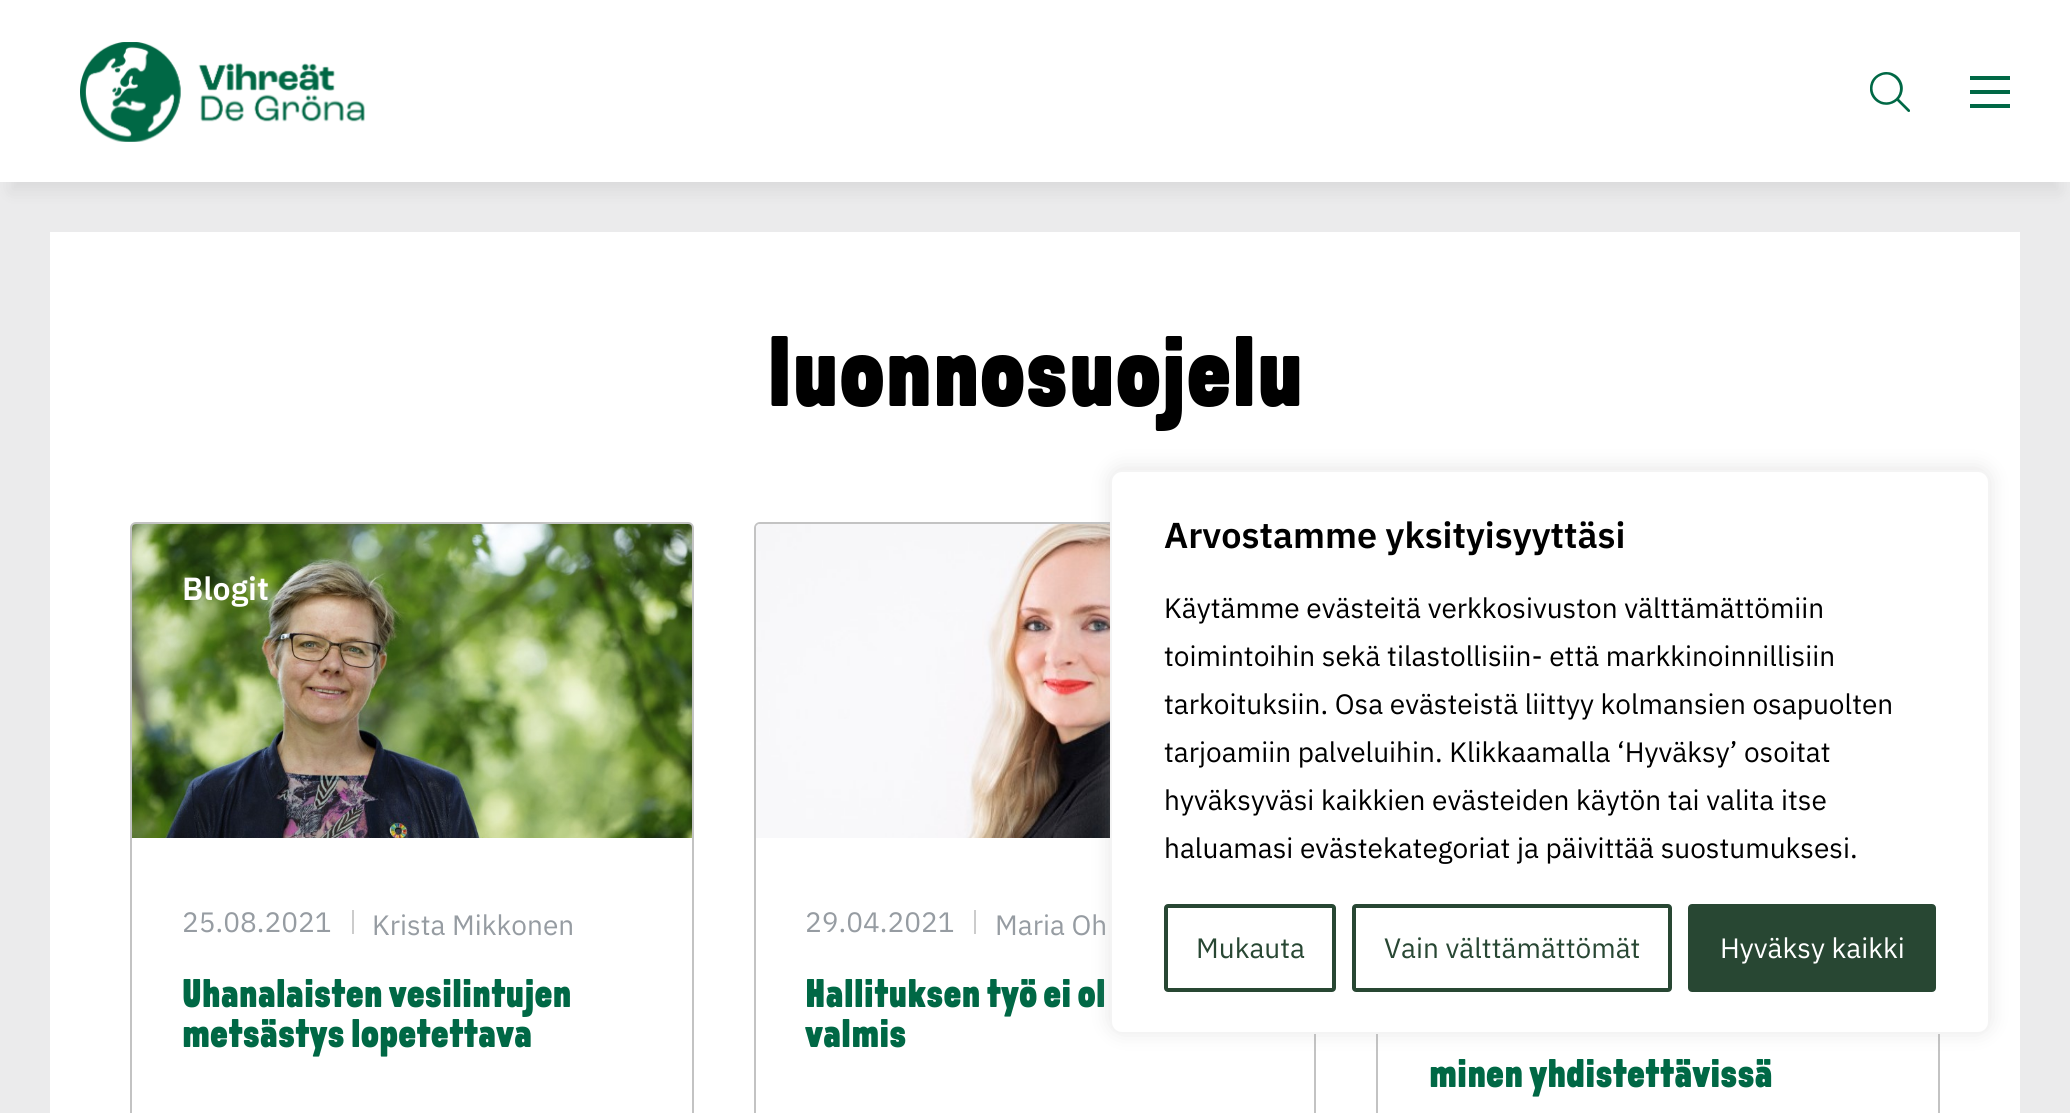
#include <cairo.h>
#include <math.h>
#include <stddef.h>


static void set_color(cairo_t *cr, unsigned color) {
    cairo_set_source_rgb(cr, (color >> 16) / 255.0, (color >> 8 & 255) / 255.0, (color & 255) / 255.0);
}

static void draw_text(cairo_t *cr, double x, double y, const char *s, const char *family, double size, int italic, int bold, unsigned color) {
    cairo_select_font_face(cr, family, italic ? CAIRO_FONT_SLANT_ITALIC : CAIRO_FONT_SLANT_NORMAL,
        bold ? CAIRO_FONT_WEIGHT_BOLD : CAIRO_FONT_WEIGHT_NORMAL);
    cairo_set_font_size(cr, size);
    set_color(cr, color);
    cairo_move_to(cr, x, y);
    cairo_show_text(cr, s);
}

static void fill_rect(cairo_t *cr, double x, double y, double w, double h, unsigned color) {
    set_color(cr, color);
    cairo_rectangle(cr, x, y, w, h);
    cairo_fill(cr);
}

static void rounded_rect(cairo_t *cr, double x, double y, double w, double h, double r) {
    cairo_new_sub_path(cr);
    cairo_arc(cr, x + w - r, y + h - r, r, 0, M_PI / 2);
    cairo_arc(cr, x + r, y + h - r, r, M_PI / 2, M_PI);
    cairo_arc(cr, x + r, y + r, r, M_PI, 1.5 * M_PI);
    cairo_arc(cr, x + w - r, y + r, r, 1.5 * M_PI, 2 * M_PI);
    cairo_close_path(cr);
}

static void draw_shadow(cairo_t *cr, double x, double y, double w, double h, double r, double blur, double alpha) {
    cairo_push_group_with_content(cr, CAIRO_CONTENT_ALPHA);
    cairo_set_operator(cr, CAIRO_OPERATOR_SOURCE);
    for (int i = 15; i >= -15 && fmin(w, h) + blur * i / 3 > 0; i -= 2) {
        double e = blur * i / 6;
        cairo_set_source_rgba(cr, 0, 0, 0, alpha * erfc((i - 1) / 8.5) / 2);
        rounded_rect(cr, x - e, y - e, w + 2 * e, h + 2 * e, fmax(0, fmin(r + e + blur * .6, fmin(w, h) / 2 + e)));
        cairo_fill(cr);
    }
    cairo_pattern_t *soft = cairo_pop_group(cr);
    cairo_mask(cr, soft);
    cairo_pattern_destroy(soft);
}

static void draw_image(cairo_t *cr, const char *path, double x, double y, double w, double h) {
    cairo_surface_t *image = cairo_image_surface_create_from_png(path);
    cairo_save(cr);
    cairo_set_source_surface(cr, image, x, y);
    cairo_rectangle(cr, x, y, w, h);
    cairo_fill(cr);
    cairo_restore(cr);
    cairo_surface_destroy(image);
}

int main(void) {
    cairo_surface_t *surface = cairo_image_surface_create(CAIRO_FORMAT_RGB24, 2070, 1113);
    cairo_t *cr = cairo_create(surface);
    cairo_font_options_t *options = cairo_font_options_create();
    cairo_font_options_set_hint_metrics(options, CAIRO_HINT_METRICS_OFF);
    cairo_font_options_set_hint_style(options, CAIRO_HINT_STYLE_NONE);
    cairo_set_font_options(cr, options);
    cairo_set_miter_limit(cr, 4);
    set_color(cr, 0xEBEBEC);
    cairo_paint(cr);
    set_color(cr, 0x000000);
    draw_shadow(cr, 10, 30, 2050, 162, 0, 8, 0.07);
    fill_rect(cr, 0, 0, 2070, 182, 0xFFFFFF);
    draw_image(cr, "assets/img1.png", 80, 42, 285, 100);
    draw_image(cr, "assets/img2.png", 1870, 72, 40, 40);
    fill_rect(cr, 1970, 76, 40, 4, 0x006845);
    fill_rect(cr, 1970, 90, 40, 4, 0x006845);
    fill_rect(cr, 1970, 104, 40, 4, 0x006845);
    fill_rect(cr, 50, 232, 1970, 881, 0xFFFFFF);
    draw_text(cr, 767, 406, "luonnosuojelu", "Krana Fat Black", 100, 0, 0, 0x000000);
    rounded_rect(cr, 131, 523, 562, 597, 5);
    set_color(cr, 0xC3C3C3);
    cairo_stroke(cr);
    draw_image(cr, "assets/img3.png", 132, 524, 560, 314);
    draw_text(cr, 182, 600, "Blogit", "IBM Plex Sans SemiBold", 32, 0, 0, 0xFFFFFF);
    draw_text(cr, 182, 932, "25.08.2021", "IBM Plex Sans", 28, 0, 0, 0x969CA2);
    fill_rect(cr, 352, 910, 2, 24, 0xCCCCCC);
    draw_text(cr, 372, 935, "Krista Mikkonen", "IBM Plex Sans", 28, 0, 0, 0x969CA2);
    draw_text(cr, 182, 1007, "Uhanalaisten vesilintujen", "Krana Fat Black", 40, 0, 0, 0x006845);
    draw_text(cr, 182, 1047, "metsästys lopetettava", "Krana Fat Black", 40, 0, 0, 0x006845);
    rounded_rect(cr, 755, 523, 560, 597, 5);
    set_color(cr, 0xC3C3C3);
    cairo_stroke(cr);
    draw_image(cr, "assets/img4.png", 756, 524, 354, 314);
    draw_text(cr, 805, 932, "29.04.2021", "IBM Plex Sans", 28, 0, 0, 0x969CA2);
    fill_rect(cr, 974, 910, 2, 24, 0xCCCCCC);
    draw_text(cr, 995, 935, "Maria Oh", "IBM Plex Sans", 28, 0, 0, 0x969CA2);
    draw_text(cr, 805, 1007, "Hallituksen työ ei ol", "Krana Fat Black", 40, 0, 0, 0x006845);
    draw_text(cr, 805, 1047, "valmis", "Krana Fat Black", 40, 0, 0, 0x006845);
    cairo_rectangle(cr, 1377, 523, 562, 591);
    set_color(cr, 0xC3C3C3);
    cairo_stroke(cr);
    draw_text(cr, 1429, 1087, "minen yhdistettävissä", "Krana Fat Black", 40, 0, 0, 0x006845);
    set_color(cr, 0xACABAB);
    draw_shadow(cr, 1110, 468, 880, 564, 12, 10, 0.3);
    set_color(cr, 0xFFFFFF);
    rounded_rect(cr, 1111, 471, 878, 562, 11);
    cairo_fill_preserve(cr);
    set_color(cr, 0xF4F4F4);
    cairo_stroke(cr);
    draw_text(cr, 1164, 548, "Arvostamme yksityisyyttäsi", "IBM Plex Sans SemiBold", 36, 0, 0, 0x000000);
    draw_text(cr, 1164, 618, "Käytämme evästeitä verkkosivuston välttämättömiin", "IBM Plex Sans", 28, 0, 0, 0x000000);
    draw_text(cr, 1164, 666, "toimintoihin sekä tilastollisiin- että markkinoinnillisiin", "IBM Plex Sans", 28, 0, 0, 0x000000);
    draw_text(cr, 1164, 714, "tarkoituksiin. Osa evästeistä liittyy kolmansien osapuolten", "IBM Plex Sans", 28, 0, 0, 0x000000);
    draw_text(cr, 1164, 762, "tarjoamiin palveluihin. Klikkaamalla ‘Hyväksy’ osoitat", "IBM Plex Sans", 28, 0, 0, 0x000000);
    draw_text(cr, 1164, 810, "hyväksyväsi kaikkien evästeiden käytön tai valita itse", "IBM Plex Sans", 28, 0, 0, 0x000000);
    draw_text(cr, 1164, 858, "haluamasi evästekategoriat ja päivittää suostumuksesi.", "IBM Plex Sans", 28, 0, 0, 0x000000);
    rounded_rect(cr, 1166, 906, 168, 84, 2);
    set_color(cr, 0x284733);
    cairo_set_line_width(cr, 4);
    cairo_stroke(cr);
    draw_text(cr, 1196, 958, "Mukauta", "IBM Plex Sans", 28, 0, 0, 0x284733);
    rounded_rect(cr, 1354, 906, 316, 84, 2);
    cairo_stroke(cr);
    draw_text(cr, 1384, 958, "Vain välttämättömät", "IBM Plex Sans", 28, 0, 0, 0x284733);
    rounded_rect(cr, 1690, 906, 244, 84, 2);
    cairo_fill_preserve(cr);
    cairo_stroke(cr);
    draw_text(cr, 1720, 958, "Hyväksy kaikki", "IBM Plex Sans", 28, 0, 0, 0xFFFFFF);
    cairo_surface_write_to_png(surface, "output.png");
    cairo_font_options_destroy(options);
    cairo_destroy(cr);
    cairo_surface_destroy(surface);
    return 0;
}
